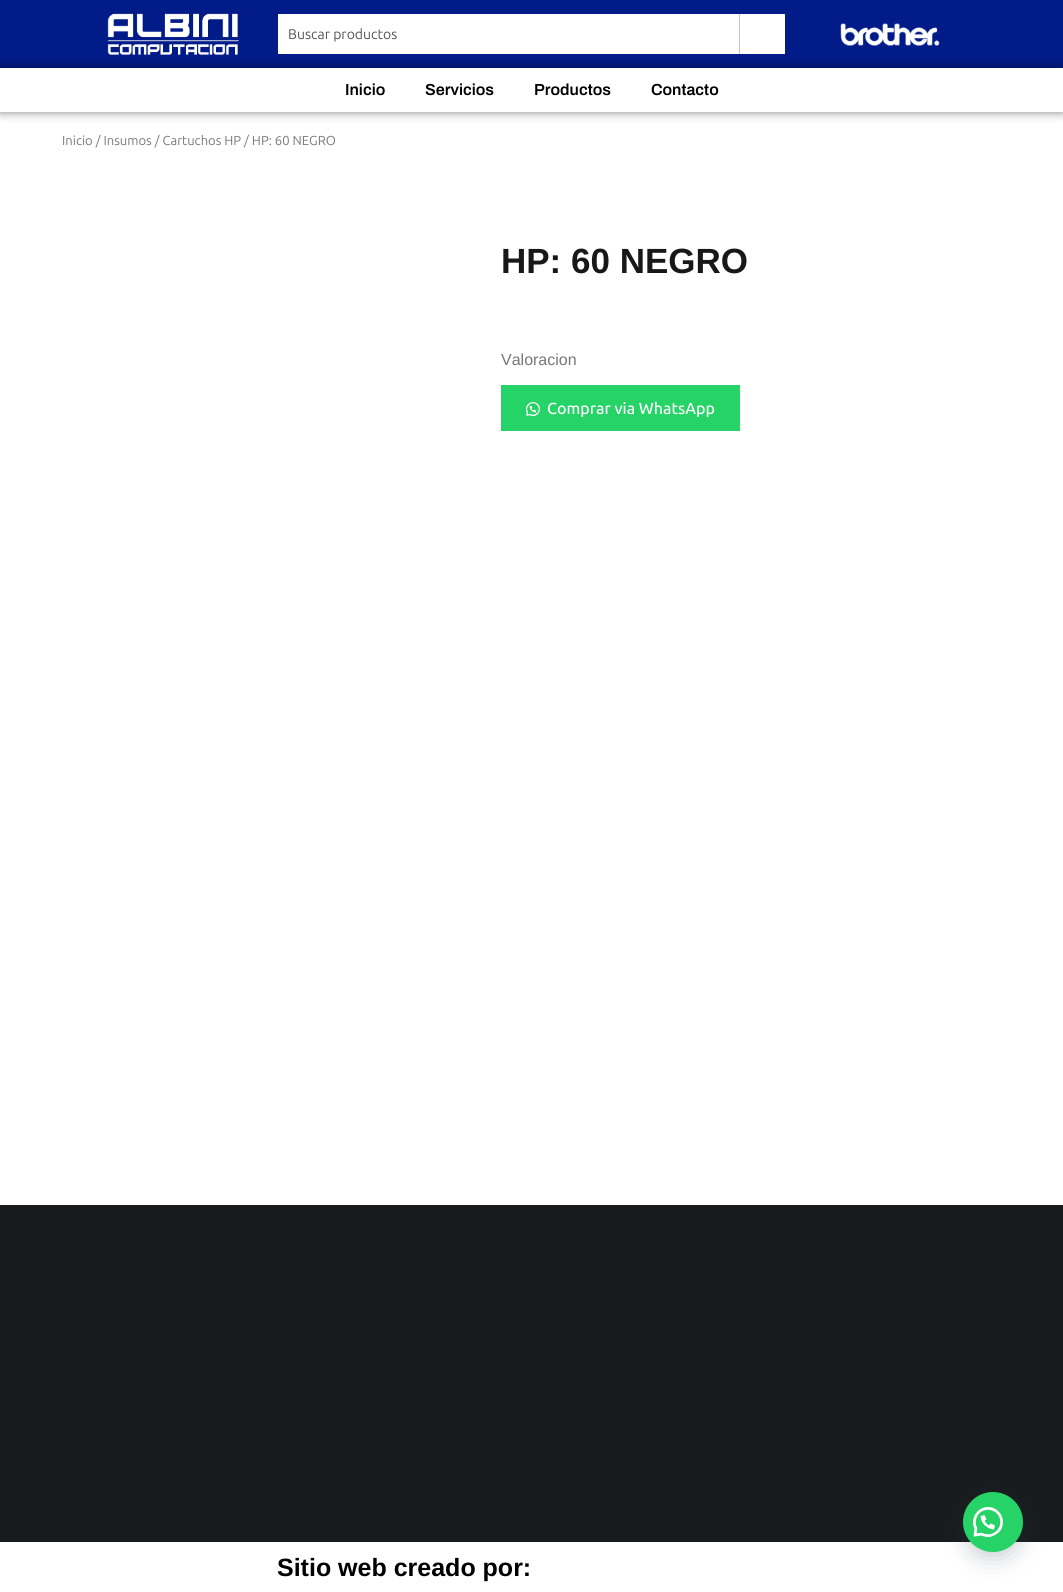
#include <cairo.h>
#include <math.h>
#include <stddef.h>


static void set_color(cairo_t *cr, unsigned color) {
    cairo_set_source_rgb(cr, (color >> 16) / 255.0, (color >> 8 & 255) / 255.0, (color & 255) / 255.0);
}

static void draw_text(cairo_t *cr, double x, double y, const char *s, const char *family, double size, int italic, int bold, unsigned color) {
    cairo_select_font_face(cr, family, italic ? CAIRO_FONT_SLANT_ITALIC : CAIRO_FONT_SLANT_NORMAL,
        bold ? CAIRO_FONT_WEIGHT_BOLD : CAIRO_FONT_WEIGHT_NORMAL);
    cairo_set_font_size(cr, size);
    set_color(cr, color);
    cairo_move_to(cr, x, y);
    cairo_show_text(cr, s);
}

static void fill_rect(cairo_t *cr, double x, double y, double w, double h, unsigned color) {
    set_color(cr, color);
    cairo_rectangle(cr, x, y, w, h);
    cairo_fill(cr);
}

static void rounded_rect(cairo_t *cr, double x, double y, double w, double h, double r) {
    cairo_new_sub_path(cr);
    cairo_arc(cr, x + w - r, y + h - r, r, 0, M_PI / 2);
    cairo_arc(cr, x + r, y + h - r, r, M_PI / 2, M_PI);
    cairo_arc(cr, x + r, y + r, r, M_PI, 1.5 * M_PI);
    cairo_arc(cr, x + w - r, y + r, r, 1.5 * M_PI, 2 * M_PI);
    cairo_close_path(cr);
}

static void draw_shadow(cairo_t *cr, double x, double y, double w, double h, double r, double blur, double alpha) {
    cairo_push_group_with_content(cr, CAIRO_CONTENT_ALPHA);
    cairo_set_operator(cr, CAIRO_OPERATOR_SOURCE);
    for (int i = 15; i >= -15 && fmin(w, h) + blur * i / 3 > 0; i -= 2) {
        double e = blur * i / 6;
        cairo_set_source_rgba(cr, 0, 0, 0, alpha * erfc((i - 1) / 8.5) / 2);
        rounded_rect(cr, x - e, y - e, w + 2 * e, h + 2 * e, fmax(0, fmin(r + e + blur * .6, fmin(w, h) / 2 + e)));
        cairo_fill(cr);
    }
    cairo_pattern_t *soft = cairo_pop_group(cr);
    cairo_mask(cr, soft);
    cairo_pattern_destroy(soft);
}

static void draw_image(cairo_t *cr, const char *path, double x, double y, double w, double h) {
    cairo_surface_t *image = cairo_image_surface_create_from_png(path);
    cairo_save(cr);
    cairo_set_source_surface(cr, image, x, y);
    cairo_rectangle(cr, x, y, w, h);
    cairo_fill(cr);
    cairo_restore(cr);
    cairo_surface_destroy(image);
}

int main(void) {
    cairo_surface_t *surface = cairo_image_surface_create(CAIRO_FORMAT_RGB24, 1063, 1592);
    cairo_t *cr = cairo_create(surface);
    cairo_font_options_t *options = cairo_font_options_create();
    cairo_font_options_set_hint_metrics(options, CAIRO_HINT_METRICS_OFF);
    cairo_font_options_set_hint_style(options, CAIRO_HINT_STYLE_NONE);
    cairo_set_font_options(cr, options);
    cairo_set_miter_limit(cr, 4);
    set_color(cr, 0xFFFFFF);
    cairo_paint(cr);
    fill_rect(cr, 0, 0, 1063, 68, 0x011B89);
    draw_image(cr, "assets/img1.png", 107, 13, 132, 42);
    cairo_save(cr);
    cairo_set_fill_rule(cr, CAIRO_FILL_RULE_EVEN_ODD);
    cairo_new_path(cr);
    cairo_move_to(cr, 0, 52);
    cairo_line_to(cr, 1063, 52);
    cairo_line_to(cr, 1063, 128);
    cairo_line_to(cr, 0, 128);
    cairo_close_path(cr);
    cairo_move_to(cr, 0, 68);
    cairo_line_to(cr, 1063, 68);
    cairo_line_to(cr, 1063, 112);
    cairo_line_to(cr, 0, 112);
    cairo_close_path(cr);
    cairo_clip(cr);
    set_color(cr, 0x000000);
    draw_shadow(cr, 0, 68, 1063, 44, 0, 5, 0.5);
    cairo_restore(cr);
    fill_rect(cr, 278, 14, 461, 40, 0xFFFFFF);
    draw_text(cr, 288, 39, "Buscar productos", "Ubuntu", 14, 0, 0, 0x535353);
    fill_rect(cr, 740, 14, 45, 40, 0xFFFFFF);
    fill_rect(cr, 739, 14, 1, 40, 0xC8C6C6);
    draw_image(cr, "assets/img2.png", 840, 23, 100, 23);
    draw_text(cr, 345, 95, "Inicio", "Archivo SemiBold", 16, 0, 0, 0x000000);
    draw_text(cr, 425, 95, "Servicios", "Archivo SemiBold", 16, 0, 0, 0x000000);
    draw_text(cr, 534, 95, "Productos", "Archivo SemiBold", 16, 0, 0, 0x000000);
    draw_text(cr, 651, 95, "Contacto", "Archivo SemiBold", 16, 0, 0, 0x000000);
    draw_text(cr, 62, 145, "Inicio / Insumos / Cartuchos HP / HP: 60 NEGRO", "Ubuntu", 13, 0, 0, 0x777777);
    draw_text(cr, 501, 273, "HP: 60 NEGRO", "Liberation Sans", 35, 0, 1, 0x181818);
    draw_text(cr, 501, 365, "Valoracion", "Liberation Sans", 16, 0, 0, 0x777777);
    fill_rect(cr, 501, 385, 239, 46, 0x25D366);
    draw_image(cr, "assets/img3.png", 526, 402, 14, 14);
    draw_text(cr, 547, 414, "Comprar via WhatsApp", "Ubuntu Medium", 16, 0, 0, 0xFFFFFF);
    fill_rect(cr, 0, 1205, 1063, 337, 0x181B1D);
    draw_text(cr, 277, 1576, "Sitio web creado por:", "Liberation Sans", 25, 0, 1, 0x000000);
    set_color(cr, 0x2D3E4F);
    draw_shadow(cr, 968, 1505, 50, 50, 25, 12.5, 0.3);
    set_color(cr, 0x25D366);
    cairo_arc(cr, 993, 1522, 30, 0, 2 * M_PI);
    cairo_fill(cr);
    draw_image(cr, "assets/img4.png", 973, 1507, 30, 30);
    cairo_surface_write_to_png(surface, "output.png");
    cairo_font_options_destroy(options);
    cairo_destroy(cr);
    cairo_surface_destroy(surface);
    return 0;
}
